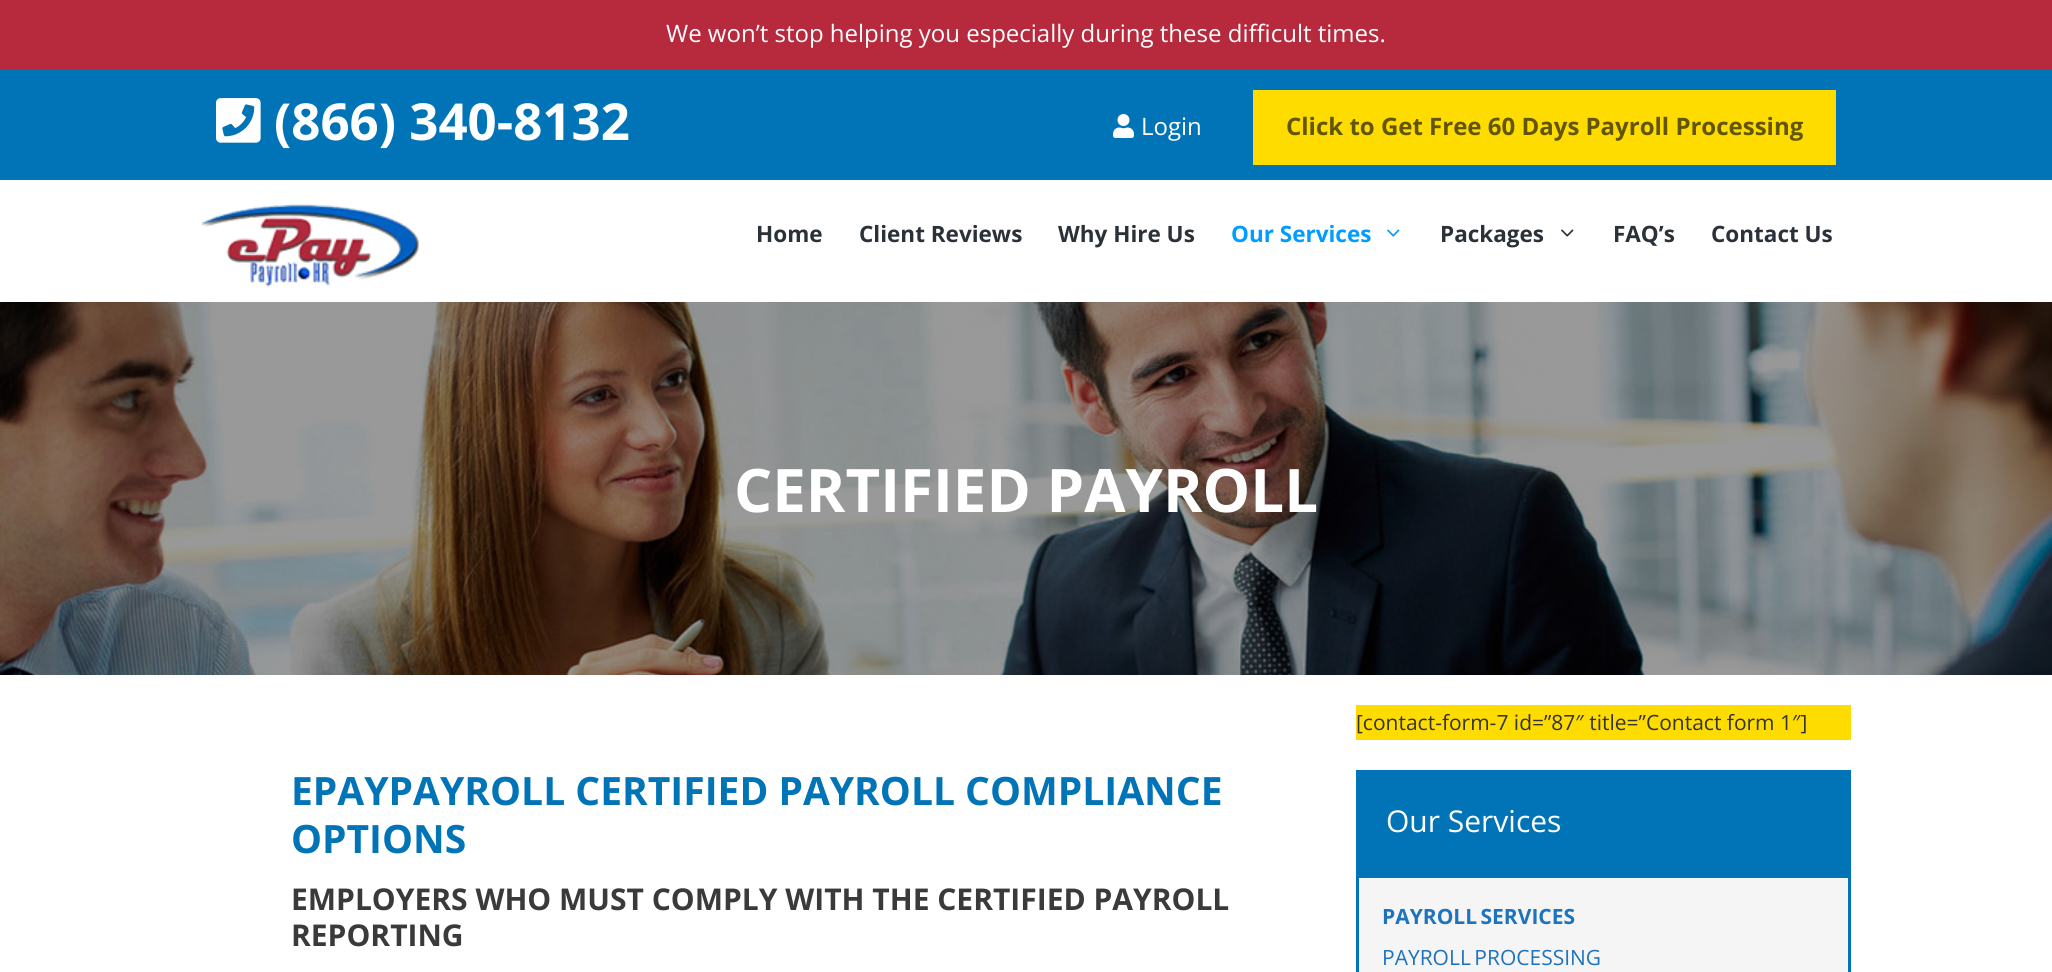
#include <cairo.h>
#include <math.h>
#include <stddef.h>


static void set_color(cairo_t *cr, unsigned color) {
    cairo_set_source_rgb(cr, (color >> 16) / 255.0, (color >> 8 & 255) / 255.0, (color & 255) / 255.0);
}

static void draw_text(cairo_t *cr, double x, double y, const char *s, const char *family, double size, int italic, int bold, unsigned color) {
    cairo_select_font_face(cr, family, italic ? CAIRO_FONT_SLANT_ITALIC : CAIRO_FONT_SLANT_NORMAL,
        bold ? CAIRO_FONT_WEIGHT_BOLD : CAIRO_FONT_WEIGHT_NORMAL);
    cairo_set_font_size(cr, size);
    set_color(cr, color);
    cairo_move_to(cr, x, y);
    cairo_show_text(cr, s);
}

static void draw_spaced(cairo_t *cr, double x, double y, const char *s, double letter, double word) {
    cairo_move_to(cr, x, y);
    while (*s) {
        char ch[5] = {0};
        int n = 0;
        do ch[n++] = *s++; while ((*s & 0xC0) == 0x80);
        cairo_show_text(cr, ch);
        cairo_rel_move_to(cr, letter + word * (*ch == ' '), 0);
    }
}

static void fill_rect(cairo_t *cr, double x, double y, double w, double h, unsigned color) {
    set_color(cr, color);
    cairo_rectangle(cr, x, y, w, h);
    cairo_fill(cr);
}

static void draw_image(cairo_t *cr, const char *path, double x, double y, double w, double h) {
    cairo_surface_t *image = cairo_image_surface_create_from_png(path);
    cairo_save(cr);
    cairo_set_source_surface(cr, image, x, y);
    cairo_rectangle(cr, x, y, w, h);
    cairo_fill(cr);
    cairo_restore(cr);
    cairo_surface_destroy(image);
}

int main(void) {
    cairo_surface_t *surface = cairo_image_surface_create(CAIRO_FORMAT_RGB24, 2052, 972);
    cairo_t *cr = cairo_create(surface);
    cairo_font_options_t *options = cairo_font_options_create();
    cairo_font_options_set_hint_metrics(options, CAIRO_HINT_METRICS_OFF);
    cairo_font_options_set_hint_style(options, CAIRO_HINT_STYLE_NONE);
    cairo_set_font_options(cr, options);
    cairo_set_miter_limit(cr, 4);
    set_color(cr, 0xFFFFFF);
    cairo_paint(cr);
    fill_rect(cr, 0, 0, 2052, 69, 0xB7293C);
    draw_text(cr, 666, 42, "We won’t stop helping you especially during these difficult times.", "Open Sans", 24, 0, 0, 0xFFFFFF);
    fill_rect(cr, 0, 69, 2052, 111, 0x0174B7);
    draw_image(cr, "assets/img1.png", 216, 98, 45, 45);
    draw_text(cr, 274, 140, "(866) 340-8132", "Open Sans", 51, 0, 1, 0xFFFFFF);
    draw_image(cr, "assets/img2.png", 1113, 114, 21, 24);
    draw_text(cr, 1141, 135, "Login", "Open Sans", 24, 0, 0, 0xFFFFFF);
    fill_rect(cr, 1253, 90, 583, 75, 0xFEDC00);
    draw_text(cr, 1286, 135, "Click to Get Free 60 Days Payroll Processing", "Open Sans", 24, 0, 1, 0x625503);
    draw_image(cr, "assets/img3.png", 201, 204, 218, 83);
    draw_text(cr, 756, 242, "Home", "Open Sans", 22.5, 0, 1, 0x2A3139);
    draw_text(cr, 859, 242, "Client Reviews", "Open Sans", 22.5, 0, 1, 0x2A3139);
    draw_text(cr, 1058, 242, "Why Hire Us", "Open Sans", 22.5, 0, 1, 0x2A3139);
    draw_text(cr, 1231, 242, "Our Services", "Open Sans", 22.5, 0, 1, 0x009CFF);
    draw_image(cr, "assets/img4.png", 1387, 229, 13, 8);
    draw_text(cr, 1440, 242, "Packages", "Open Sans", 22.5, 0, 1, 0x2A3139);
    draw_image(cr, "assets/img5.png", 1561, 229, 13, 8);
    draw_text(cr, 1613, 242, "FAQ’s", "Open Sans", 22.5, 0, 1, 0x2A3139);
    draw_text(cr, 1711, 242, "Contact Us", "Open Sans", 22.5, 0, 1, 0x2A3139);
    draw_image(cr, "assets/img6.png", 0, 302, 2052, 373);
    draw_text(cr, 734, 512, "CERTIFIED PAYROLL", "Open Sans", 60, 0, 1, 0xFFFFFF);
    draw_text(cr, 291, 805, "EPAYPAYROLL CERTIFIED PAYROLL COMPLIANCE", "Open Sans", 39, 0, 1, 0x0174B7);
    draw_text(cr, 291, 853, "OPTIONS", "Open Sans", 39, 0, 1, 0x0174B7);
    draw_text(cr, 291, 910, "EMPLOYERS WHO MUST COMPLY WITH THE CERTIFIED PAYROLL", "Open Sans", 30, 0, 1, 0x3A3A3A);
    draw_text(cr, 291, 946, "REPORTING", "Open Sans", 30, 0, 1, 0x3A3A3A);
    fill_rect(cr, 1356, 705, 495, 35, 0xFEDC00);
    draw_text(cr, 1356, 730, "[contact-form-7 id=”87″ title=”Contact form 1″]", "Open Sans", 21, 0, 0, 0x333333);
    fill_rect(cr, 1356, 770, 495, 105, 0x0174B7);
    draw_text(cr, 1386, 832, "Our Services", "Open Sans", 30, 0, 0, 0xFFFFFF);
    set_color(cr, 0xF5F5F5);
    cairo_rectangle(cr, 1357.5, 876.5, 492, 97);
    cairo_fill_preserve(cr);
    set_color(cr, 0x0174B7);
    cairo_set_line_width(cr, 3);
    cairo_stroke(cr);
    cairo_select_font_face(cr, "Open Sans", CAIRO_FONT_SLANT_NORMAL, CAIRO_FONT_WEIGHT_BOLD);
    cairo_set_font_size(cr, 21);
    set_color(cr, 0x1E73BE);
    draw_spaced(cr, 1382, 924, "PAYROLL SERVICES", 0, -2);
    cairo_select_font_face(cr, "Open Sans", CAIRO_FONT_SLANT_NORMAL, CAIRO_FONT_WEIGHT_NORMAL);
    draw_spaced(cr, 1382, 965, "PAYROLL PROCESSING", 0, -2);
    cairo_surface_write_to_png(surface, "output.png");
    cairo_font_options_destroy(options);
    cairo_destroy(cr);
    cairo_surface_destroy(surface);
    return 0;
}
